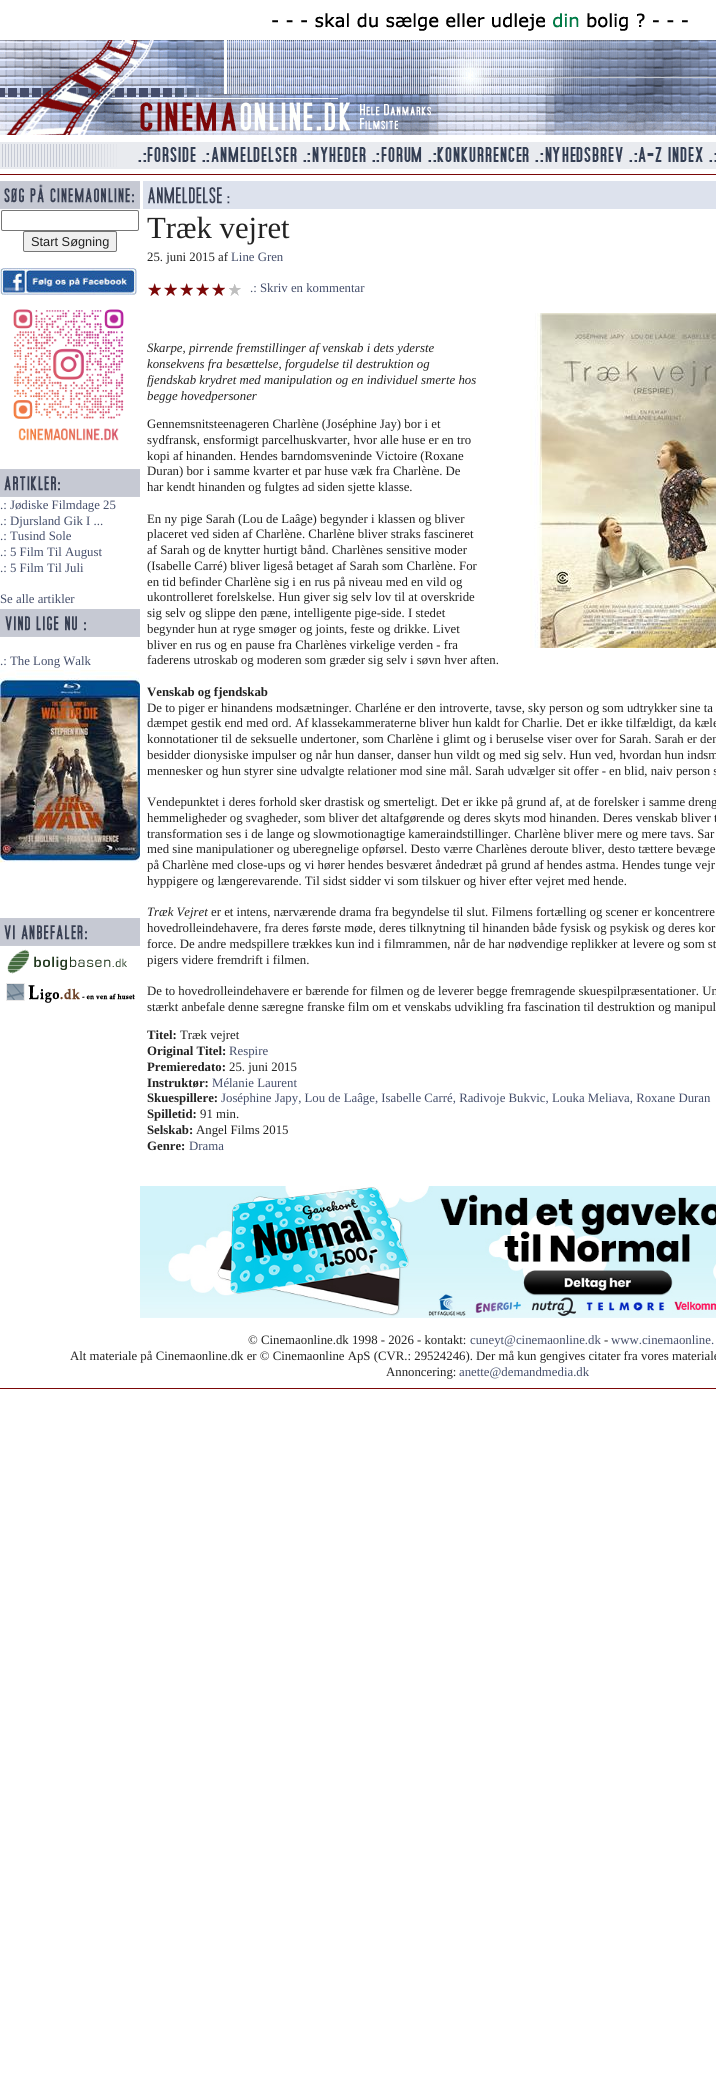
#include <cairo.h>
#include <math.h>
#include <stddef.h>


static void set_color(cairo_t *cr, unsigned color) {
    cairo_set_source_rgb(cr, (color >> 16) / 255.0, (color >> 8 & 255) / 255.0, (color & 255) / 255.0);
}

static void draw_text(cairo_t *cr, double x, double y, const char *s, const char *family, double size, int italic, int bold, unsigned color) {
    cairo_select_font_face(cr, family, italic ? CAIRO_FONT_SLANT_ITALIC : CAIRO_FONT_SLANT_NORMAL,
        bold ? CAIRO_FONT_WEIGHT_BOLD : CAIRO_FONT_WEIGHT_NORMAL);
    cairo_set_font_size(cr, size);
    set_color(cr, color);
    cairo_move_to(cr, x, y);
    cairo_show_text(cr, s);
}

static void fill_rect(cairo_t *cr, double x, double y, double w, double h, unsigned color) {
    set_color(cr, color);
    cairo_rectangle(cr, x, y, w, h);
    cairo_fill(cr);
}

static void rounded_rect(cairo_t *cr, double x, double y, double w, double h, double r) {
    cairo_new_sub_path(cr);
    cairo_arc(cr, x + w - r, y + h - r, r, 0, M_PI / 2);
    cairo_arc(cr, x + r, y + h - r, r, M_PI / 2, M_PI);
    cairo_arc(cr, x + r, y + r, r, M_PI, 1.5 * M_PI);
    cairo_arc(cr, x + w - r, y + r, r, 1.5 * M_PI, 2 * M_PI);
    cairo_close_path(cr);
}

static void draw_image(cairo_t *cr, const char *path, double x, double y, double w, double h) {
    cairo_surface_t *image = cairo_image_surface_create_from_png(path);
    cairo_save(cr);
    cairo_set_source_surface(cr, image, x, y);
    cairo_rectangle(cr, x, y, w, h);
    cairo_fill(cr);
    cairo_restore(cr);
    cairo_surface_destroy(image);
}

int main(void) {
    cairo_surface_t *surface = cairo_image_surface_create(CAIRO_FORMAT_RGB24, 716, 2076);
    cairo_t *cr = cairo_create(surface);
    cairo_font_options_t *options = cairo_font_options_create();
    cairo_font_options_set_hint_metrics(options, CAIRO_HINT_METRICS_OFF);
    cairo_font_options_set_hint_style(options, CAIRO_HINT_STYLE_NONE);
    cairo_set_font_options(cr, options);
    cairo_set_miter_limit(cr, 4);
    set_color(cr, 0xFFFFFF);
    cairo_paint(cr);
    draw_image(cr, "assets/img1.png", 272, 13, 416, 18);
    draw_image(cr, "assets/img2.png", 0, 40, 716, 8);
    draw_image(cr, "assets/img3.png", 0, 48, 500, 60);
    draw_image(cr, "assets/img4.png", 500, 48, 216, 60);
    draw_image(cr, "assets/img5.png", 0, 108, 716, 27);
    draw_image(cr, "assets/img6.png", 0, 142, 135, 27);
    draw_image(cr, "assets/img7.png", 135, 142, 65, 27);
    draw_image(cr, "assets/img8.png", 200, 142, 101, 27);
    draw_image(cr, "assets/img9.png", 301, 142, 69, 27);
    draw_image(cr, "assets/img10.png", 370, 142, 55, 27);
    draw_image(cr, "assets/img11.png", 425, 142, 108, 27);
    draw_image(cr, "assets/img12.png", 533, 142, 93, 27);
    draw_image(cr, "assets/img13.png", 626, 142, 81, 27);
    draw_image(cr, "assets/img14.png", 707, 142, 9, 27);
    fill_rect(cr, 0, 174, 716, 1, 0x7C0808);
    draw_image(cr, "assets/img15.png", 0, 181, 140, 28);
    rounded_rect(cr, 1.5, 210.5, 137, 20, 1.5);
    set_color(cr, 0x767676);
    cairo_set_line_width(cr, 1);
    cairo_stroke(cr);
    set_color(cr, 0xEFEFEF);
    rounded_rect(cr, 23.5, 231.5, 93, 20, 1.5);
    cairo_fill_preserve(cr);
    set_color(cr, 0x767676);
    cairo_stroke(cr);
    draw_text(cr, 31, 246, "Start Søgning", "Liberation Sans", 12.8, 0, 0, 0x222222);
    draw_image(cr, "assets/img16.png", 0, 268, 137, 27);
    draw_image(cr, "assets/img17.png", 13, 309, 111, 132);
    draw_image(cr, "assets/img18.png", 0, 469, 140, 28);
    draw_text(cr, 0, 509, ".: Jødiske Filmdage 25", "Liberation Serif", 12.8, 0, 0, 0x444E6B);
    draw_text(cr, 0, 525, ".: Djursland Gik I ...", "Liberation Serif", 12.8, 0, 0, 0x444E6B);
    draw_text(cr, 0, 540, ".: Tusind Sole", "Liberation Serif", 12.8, 0, 0, 0x444E6B);
    draw_text(cr, 0, 556, ".: 5 Film Til August", "Liberation Serif", 12.8, 0, 0, 0x444E6B);
    draw_text(cr, 0, 572, ".: 5 Film Til Juli", "Liberation Serif", 12.8, 0, 0, 0x444E6B);
    draw_text(cr, 0, 603, "Se alle artikler", "Liberation Serif", 12.8, 0, 0, 0x444E6B);
    draw_image(cr, "assets/img19.png", 0, 609, 140, 28);
    draw_text(cr, 0, 665, ".: The Long Walk", "Liberation Serif", 12.8, 0, 0, 0x444E6B);
    draw_image(cr, "assets/img20.png", 0, 670, 140, 193);
    draw_image(cr, "assets/img21.png", 0, 918, 140, 28);
    draw_image(cr, "assets/img22.png", 7, 949, 120, 25);
    draw_image(cr, "assets/img23.png", 6, 983, 129, 20);
    draw_image(cr, "assets/img24.png", 143, 181, 573, 28);
    draw_text(cr, 147, 238, "Træk vejret", "Liberation Serif", 30.75, 0, 0, 0x222222);
    draw_text(cr, 147, 261, "25. juni 2015 af", "Liberation Serif", 12.8, 0, 0, 0x222222);
    draw_text(cr, 231, 261, "Line Gren", "Liberation Serif", 12.8, 0, 0, 0x444E6B);
    draw_image(cr, "assets/img25.png", 148, 283, 93, 13);
    draw_text(cr, 250, 292, ".: Skriv en kommentar", "Liberation Serif", 12.8, 0, 0, 0x444E6B);
    draw_text(cr, 147, 352, "Skarpe, pirrende fremstillinger af venskab i dets yderste", "Liberation Serif", 12.8, 1, 0, 0x222222);
    draw_text(cr, 147, 368, "konsekvens fra besættelse, forgudelse til destruktion og", "Liberation Serif", 12.8, 1, 0, 0x222222);
    draw_text(cr, 147, 384, "fjendskab krydret med manipulation og en individuel smerte hos", "Liberation Serif", 12.8, 1, 0, 0x222222);
    draw_text(cr, 147, 400, "begge hovedpersoner", "Liberation Serif", 12.8, 1, 0, 0x222222);
    draw_image(cr, "assets/img26.png", 530, 313, 186, 335);
    draw_text(cr, 147, 428, "Gennemsnitsteenageren Charlène (Joséphine Jay) bor i et", "Liberation Serif", 12.8, 0, 0, 0x222222);
    draw_text(cr, 147, 444, "sydfransk, ensformigt parcelhuskvarter, hvor alle huse er en tro", "Liberation Serif", 12.8, 0, 0, 0x222222);
    draw_text(cr, 147, 460, "kopi af hinanden. Hendes barndomsveninde Victoire (Roxane", "Liberation Serif", 12.8, 0, 0, 0x222222);
    draw_text(cr, 147, 475, "Duran) bor i samme kvarter et par huse væk fra Charlène. De", "Liberation Serif", 12.8, 0, 0, 0x222222);
    draw_text(cr, 147, 491, "har kendt hinanden og fulgtes ad siden sjette klasse.", "Liberation Serif", 12.8, 0, 0, 0x222222);
    draw_text(cr, 147, 523, "En ny pige Sarah (Lou de Laâge) begynder i klassen og bliver", "Liberation Serif", 12.8, 0, 0, 0x222222);
    draw_text(cr, 147, 538, "placeret ved siden af Charlène. Charlène bliver straks fascineret", "Liberation Serif", 12.8, 0, 0, 0x222222);
    draw_text(cr, 147, 554, "af Sarah og de knytter hurtigt bånd. Charlènes sensitive moder", "Liberation Serif", 12.8, 0, 0, 0x222222);
    draw_text(cr, 147, 570, "(Isabelle Carré) bliver ligeså betaget af Sarah som Charlène. For", "Liberation Serif", 12.8, 0, 0, 0x222222);
    draw_text(cr, 147, 586, "en tid befinder Charlène sig i en rus på niveau med en vild og", "Liberation Serif", 12.8, 0, 0, 0x222222);
    draw_text(cr, 147, 601, "ukontrolleret forelskelse. Hun giver sig selv lov til at overskride", "Liberation Serif", 12.8, 0, 0, 0x222222);
    draw_text(cr, 147, 617, "sig selv og slippe den pæne, intelligente pige-side. I stedet", "Liberation Serif", 12.8, 0, 0, 0x222222);
    draw_text(cr, 147, 633, "begynder hun at ryge smøger og joints, feste og drikke. Livet", "Liberation Serif", 12.8, 0, 0, 0x222222);
    draw_text(cr, 147, 649, "bliver en rus og en pause fra Charlènes virkelige verden - fra", "Liberation Serif", 12.8, 0, 0, 0x222222);
    draw_text(cr, 147, 664, "faderens utroskab og moderen som græder sig selv i søvn hver aften.", "Liberation Serif", 12.8, 0, 0, 0x222222);
    draw_text(cr, 147, 696, "Venskab og fjendskab", "Liberation Serif", 12.8, 0, 1, 0x222222);
    draw_text(cr, 147, 712, "De to piger er hinandens modsætninger. Charléne er den introverte, tavse, sky person og som udtrykker sine ta", "Liberation Serif", 12.8, 0, 0, 0x222222);
    draw_text(cr, 147, 727, "dæmpet gestik end med ord. Af klassekammeraterne bliver hun kaldt for Charlie. Det er ikke tilfældigt, da kæle", "Liberation Serif", 12.8, 0, 0, 0x222222);
    draw_text(cr, 147, 743, "konnotationer til de seksuelle undertoner, som Charlène i glimt og i beruselse viser over for Sarah. Sarah er den", "Liberation Serif", 12.8, 0, 0, 0x222222);
    draw_text(cr, 147, 759, "besidder dionysiske impulser og når hun danser, danser hun vildt og med sig selv. Hun ved, hvordan hun indsm", "Liberation Serif", 12.8, 0, 0, 0x222222);
    draw_text(cr, 147, 775, "mennesker og hun styrer sine udvalgte relationer mod sine mål. Sarah udvælger sit offer - en blid, naiv person s", "Liberation Serif", 12.8, 0, 0, 0x222222);
    draw_text(cr, 147, 806, "Vendepunktet i deres forhold sker drastisk og smerteligt. Det er ikke på grund af, at de forelsker i samme dreng", "Liberation Serif", 12.8, 0, 0, 0x222222);
    draw_text(cr, 147, 822, "hemmeligheder og svagheder, som bliver det altafgørende og deres skyts mod hinanden. Deres venskab bliver t", "Liberation Serif", 12.8, 0, 0, 0x222222);
    draw_text(cr, 147, 838, "transformation ses i de lange og slowmotionagtige kameraindstillinger. Charlène bliver mere og mere tavs. Sar", "Liberation Serif", 12.8, 0, 0, 0x222222);
    draw_text(cr, 147, 853, "med sine manipulationer og uberegnelige opførsel. Desto værre Charlènes deroute bliver, desto tættere bevæge", "Liberation Serif", 12.8, 0, 0, 0x222222);
    draw_text(cr, 147, 869, "på Charlène med close-ups og vi hører hendes besværet åndedræt på grund af hendes astma. Hendes tunge vejr", "Liberation Serif", 12.8, 0, 0, 0x222222);
    draw_text(cr, 147, 885, "hyppigere og længerevarende. Til sidst sidder vi som tilskuer og hiver efter vejret med hende.", "Liberation Serif", 12.8, 0, 0, 0x222222);
    draw_text(cr, 147, 916, "Træk Vejret", "Liberation Serif", 12.8, 1, 0, 0x222222);
    draw_text(cr, 211, 916, "er et intens, nærværende drama fra begyndelse til slut. Filmens fortælling og scener er koncentrere", "Liberation Serif", 12.8, 0, 0, 0x222222);
    draw_text(cr, 147, 932, "hovedrolleindehavere, fra deres første møde, deres tilknytning til hinanden både fysisk og psykisk og deres kor", "Liberation Serif", 12.8, 0, 0, 0x222222);
    draw_text(cr, 147, 948, "force. De andre medspillere trækkes kun ind i filmrammen, når de har nødvendige replikker at levere og som st", "Liberation Serif", 12.8, 0, 0, 0x222222);
    draw_text(cr, 147, 964, "pigers videre fremdrift i filmen.", "Liberation Serif", 12.8, 0, 0, 0x222222);
    draw_text(cr, 147, 995, "De to hovedrolleindehavere er bærende for filmen og de leverer begge fremragende skuespilpræsentationer. Un", "Liberation Serif", 12.8, 0, 0, 0x222222);
    draw_text(cr, 147, 1011, "stærkt anbefale denne særegne franske film om et venskabs udvikling fra fascination til destruktion og manipul", "Liberation Serif", 12.8, 0, 0, 0x222222);
    draw_text(cr, 147, 1039, "Titel:", "Liberation Serif", 12.8, 0, 1, 0x222222);
    draw_text(cr, 180, 1039, "Træk vejret", "Liberation Serif", 12.8, 0, 0, 0x222222);
    draw_text(cr, 147, 1055, "Original Titel:", "Liberation Serif", 12.8, 0, 1, 0x222222);
    draw_text(cr, 229, 1055, "Respire", "Liberation Serif", 12.8, 0, 0, 0x444E6B);
    draw_text(cr, 147, 1071, "Premieredato:", "Liberation Serif", 12.8, 0, 1, 0x222222);
    draw_text(cr, 229, 1071, "25. juni 2015", "Liberation Serif", 12.8, 0, 0, 0x222222);
    draw_text(cr, 147, 1087, "Instruktør:", "Liberation Serif", 12.8, 0, 1, 0x222222);
    draw_text(cr, 212, 1087, "Mélanie Laurent", "Liberation Serif", 12.8, 0, 0, 0x444E6B);
    draw_text(cr, 147, 1102, "Skuespillere:", "Liberation Serif", 12.8, 0, 1, 0x222222);
    draw_text(cr, 221, 1102, "Joséphine Japy, Lou de Laâge, Isabelle Carré, Radivoje Bukvic, Louka Meliava, Roxane Duran", "Liberation Serif", 12.8, 0, 0, 0x444E6B);
    draw_text(cr, 147, 1118, "Spilletid:", "Liberation Serif", 12.8, 0, 1, 0x222222);
    draw_text(cr, 200, 1118, "91 min.", "Liberation Serif", 12.8, 0, 0, 0x222222);
    draw_text(cr, 147, 1134, "Selskab:", "Liberation Serif", 12.8, 0, 1, 0x222222);
    draw_text(cr, 196, 1134, "Angel Films 2015", "Liberation Serif", 12.8, 0, 0, 0x222222);
    draw_text(cr, 147, 1150, "Genre:", "Liberation Serif", 12.8, 0, 1, 0x222222);
    draw_text(cr, 189, 1150, "Drama", "Liberation Serif", 12.8, 0, 0, 0x444E6B);
    draw_image(cr, "assets/img27.png", 140, 1186, 576, 132);
    draw_text(cr, 248, 1344, "© Cinemaonline.dk 1998 - 2026 - kontakt:", "Liberation Serif", 12.8, 0, 0, 0x222222);
    draw_text(cr, 470, 1344, "cuneyt@cinemaonline.dk", "Liberation Serif", 12.8, 0, 0, 0x444E6B);
    draw_text(cr, 604, 1344, "-", "Liberation Serif", 12.8, 0, 0, 0x222222);
    draw_text(cr, 611, 1344, "www.cinemaonline.", "Liberation Serif", 12.8, 0, 0, 0x444E6B);
    draw_text(cr, 70, 1360, "Alt materiale på Cinemaonline.dk er © Cinemaonline ApS (CVR.: 29524246). Der må kun gengives citater fra vores materiale", "Liberation Serif", 12.8, 0, 0, 0x222222);
    draw_text(cr, 386, 1376, "Annoncering:", "Liberation Serif", 12.8, 0, 0, 0x222222);
    draw_text(cr, 459, 1376, "anette@demandmedia.dk", "Liberation Serif", 12.8, 0, 0, 0x444E6B);
    fill_rect(cr, 0, 1388, 716, 1, 0x7C0808);
    cairo_surface_write_to_png(surface, "output.png");
    cairo_font_options_destroy(options);
    cairo_destroy(cr);
    cairo_surface_destroy(surface);
    return 0;
}
